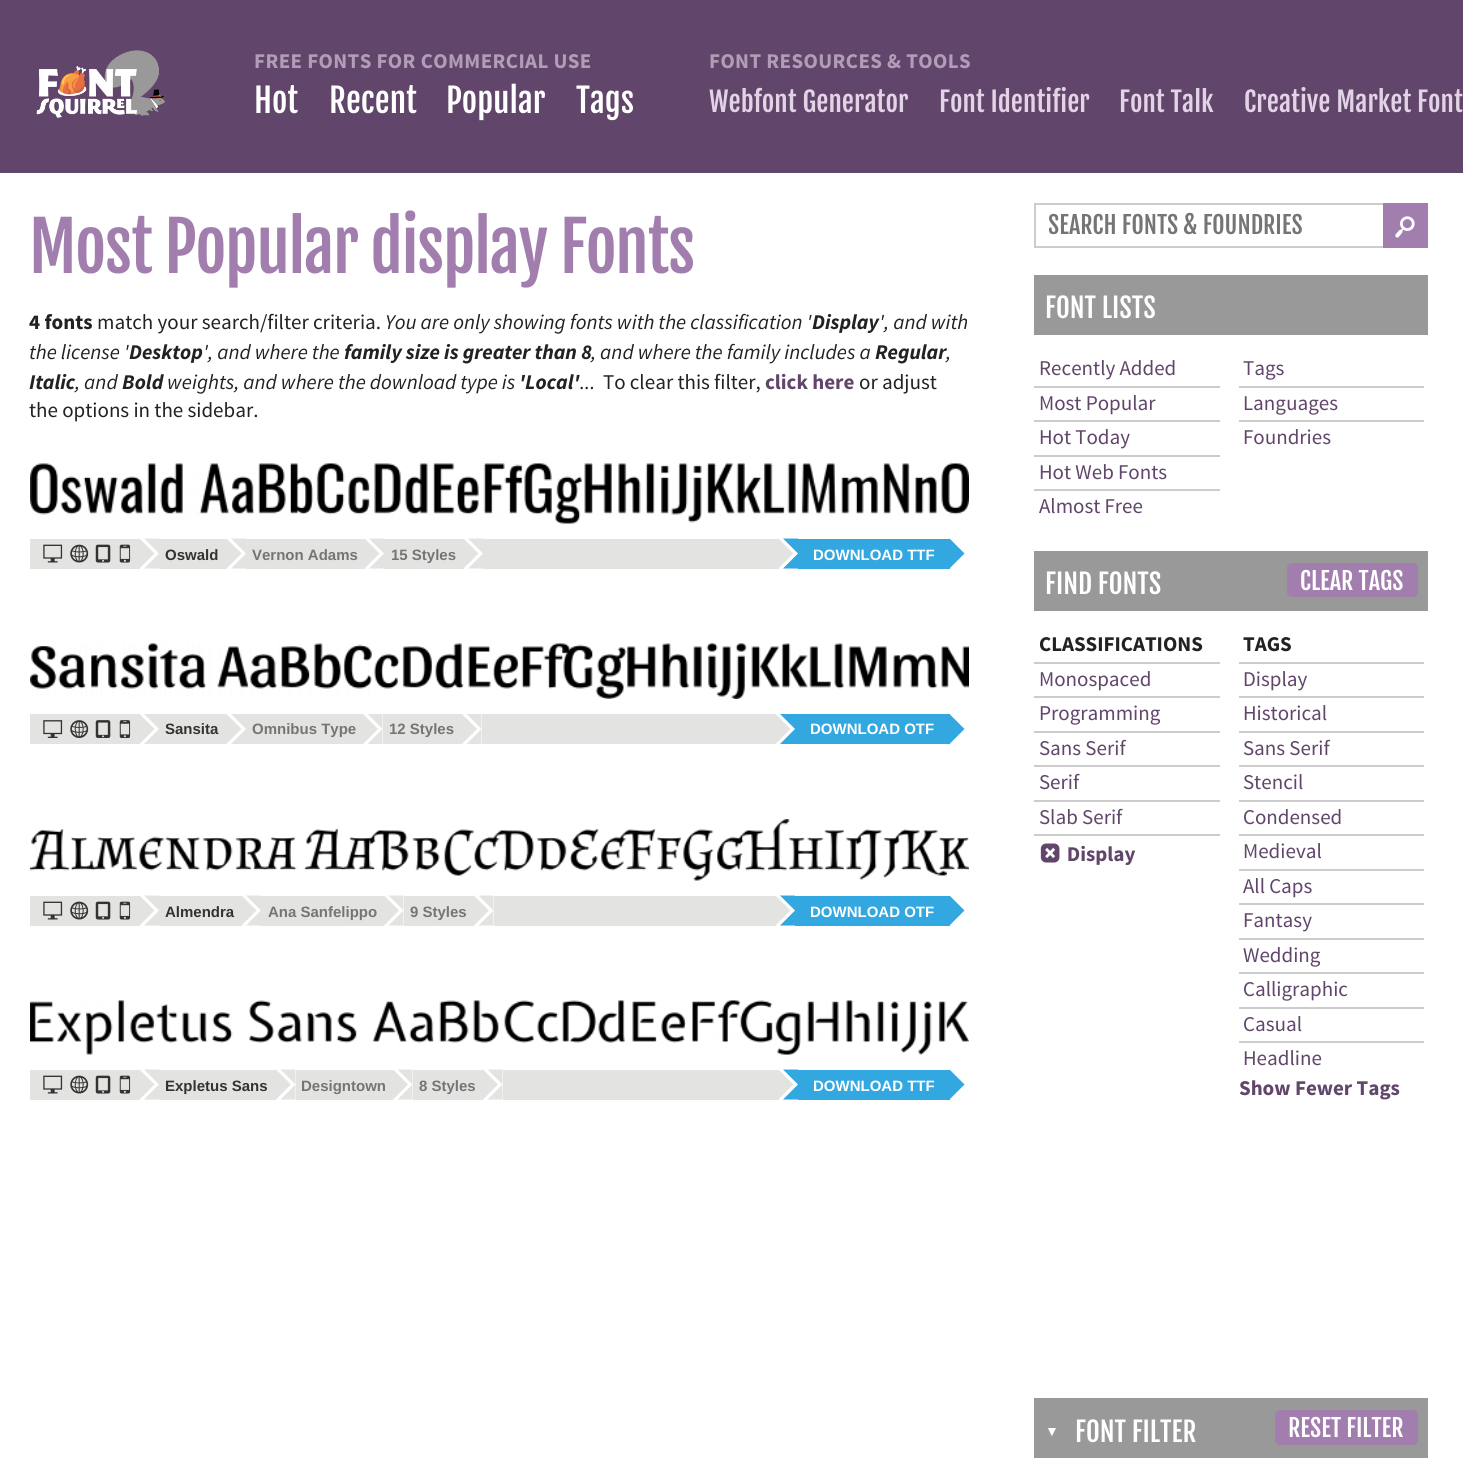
#include <cairo.h>
#include <math.h>
#include <stddef.h>


static void set_color(cairo_t *cr, unsigned color) {
    cairo_set_source_rgb(cr, (color >> 16) / 255.0, (color >> 8 & 255) / 255.0, (color & 255) / 255.0);
}

static void draw_text(cairo_t *cr, double x, double y, const char *s, const char *family, double size, int italic, int bold, unsigned color) {
    cairo_select_font_face(cr, family, italic ? CAIRO_FONT_SLANT_ITALIC : CAIRO_FONT_SLANT_NORMAL,
        bold ? CAIRO_FONT_WEIGHT_BOLD : CAIRO_FONT_WEIGHT_NORMAL);
    cairo_set_font_size(cr, size);
    set_color(cr, color);
    cairo_move_to(cr, x, y);
    cairo_show_text(cr, s);
}

static void draw_spaced(cairo_t *cr, double x, double y, const char *s, double letter, double word) {
    cairo_move_to(cr, x, y);
    while (*s) {
        char ch[5] = {0};
        int n = 0;
        do ch[n++] = *s++; while ((*s & 0xC0) == 0x80);
        cairo_show_text(cr, ch);
        cairo_rel_move_to(cr, letter + word * (*ch == ' '), 0);
    }
}

static void fill_rect(cairo_t *cr, double x, double y, double w, double h, unsigned color) {
    set_color(cr, color);
    cairo_rectangle(cr, x, y, w, h);
    cairo_fill(cr);
}

static void rounded_rect(cairo_t *cr, double x, double y, double w, double h, double r) {
    cairo_new_sub_path(cr);
    cairo_arc(cr, x + w - r, y + h - r, r, 0, M_PI / 2);
    cairo_arc(cr, x + r, y + h - r, r, M_PI / 2, M_PI);
    cairo_arc(cr, x + r, y + r, r, M_PI, 1.5 * M_PI);
    cairo_arc(cr, x + w - r, y + r, r, 1.5 * M_PI, 2 * M_PI);
    cairo_close_path(cr);
}

static void draw_image(cairo_t *cr, const char *path, double x, double y, double w, double h) {
    cairo_surface_t *image = cairo_image_surface_create_from_png(path);
    cairo_save(cr);
    cairo_set_source_surface(cr, image, x, y);
    cairo_rectangle(cr, x, y, w, h);
    cairo_fill(cr);
    cairo_restore(cr);
    cairo_surface_destroy(image);
}

int main(void) {
    cairo_surface_t *surface = cairo_image_surface_create(CAIRO_FORMAT_RGB24, 1463, 1461);
    cairo_t *cr = cairo_create(surface);
    cairo_font_options_t *options = cairo_font_options_create();
    cairo_font_options_set_hint_metrics(options, CAIRO_HINT_METRICS_OFF);
    cairo_font_options_set_hint_style(options, CAIRO_HINT_STYLE_NONE);
    cairo_set_font_options(cr, options);
    cairo_set_miter_limit(cr, 4);
    set_color(cr, 0xFFFFFF);
    cairo_paint(cr);
    fill_rect(cr, 0, 0, 1463, 173, 0x61456A);
    draw_image(cr, "assets/img1.png", 36, 50, 129, 68);
    cairo_select_font_face(cr, "Source Sans Pro", CAIRO_FONT_SLANT_NORMAL, CAIRO_FONT_WEIGHT_BOLD);
    cairo_set_font_size(cr, 21);
    set_color(cr, 0xB19DB7);
    draw_spaced(cr, 254, 68, "FREE FONTS FOR COMMERCIAL USE", 0.4, 0);
    draw_text(cr, 254, 113, "Hot", "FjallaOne", 33, 0, 0, 0xFFFFFF);
    draw_text(cr, 329, 113, "Recent", "FjallaOne", 33, 0, 0, 0xFFFFFF);
    draw_text(cr, 446, 113, "Popular", "FjallaOne", 33, 0, 0, 0xFFFFFF);
    draw_text(cr, 576, 113, "Tags", "FjallaOne", 33, 0, 0, 0xFFFFFF);
    cairo_select_font_face(cr, "Source Sans Pro", CAIRO_FONT_SLANT_NORMAL, CAIRO_FONT_WEIGHT_BOLD);
    cairo_set_font_size(cr, 21);
    set_color(cr, 0xB19DB7);
    draw_spaced(cr, 709, 68, "FONT RESOURCES & TOOLS", 0.4, 0);
    draw_text(cr, 709, 112, "Webfont Generator", "FjallaOne", 27, 0, 0, 0xE2D3E7);
    draw_text(cr, 939, 112, "Font Identifier", "FjallaOne", 27, 0, 0, 0xE2D3E7);
    draw_text(cr, 1119, 112, "Font Talk", "FjallaOne", 27, 0, 0, 0xE2D3E7);
    draw_text(cr, 1244, 112, "Creative Market Font", "FjallaOne", 27, 0, 0, 0xE2D3E7);
    cairo_set_font_size(cr, 67.5);
    set_color(cr, 0xA27EAF);
    draw_spaced(cr, 29, 273, "Most Popular display Fonts", -1.5, 0);
    draw_text(cr, 29, 329, "4 fonts", "Source Sans Pro", 21, 0, 1, 0x222222);
    draw_text(cr, 97, 329, "match your search/filter criteria.", "Source Sans Pro", 21, 0, 0, 0x222222);
    draw_text(cr, 385, 329, "You are only showing fonts with the classification '", "Source Sans Pro", 21, 1, 0, 0x222222);
    draw_text(cr, 812, 329, "Display", "Source Sans Pro", 21, 1, 1, 0x222222);
    draw_text(cr, 879, 329, "', and with", "Source Sans Pro", 21, 1, 0, 0x222222);
    draw_text(cr, 29, 359, "the license '", "Source Sans Pro", 21, 1, 0, 0x222222);
    draw_text(cr, 129, 359, "Desktop", "Source Sans Pro", 21, 1, 1, 0x222222);
    draw_text(cr, 203, 359, "', and where the", "Source Sans Pro", 21, 1, 0, 0x222222);
    draw_text(cr, 344, 359, "family size is greater than 8", "Source Sans Pro", 21, 1, 1, 0x222222);
    draw_text(cr, 591, 359, ", and where the family includes a", "Source Sans Pro", 21, 1, 0, 0x222222);
    draw_text(cr, 875, 359, "Regular", "Source Sans Pro", 21, 1, 1, 0x222222);
    draw_text(cr, 946, 359, ",", "Source Sans Pro", 21, 1, 0, 0x222222);
    draw_text(cr, 29, 389, "Italic", "Source Sans Pro", 21, 1, 1, 0x222222);
    draw_text(cr, 75, 389, ", and", "Source Sans Pro", 21, 1, 0, 0x222222);
    draw_text(cr, 122, 389, "Bold", "Source Sans Pro", 21, 1, 1, 0x222222);
    draw_text(cr, 167, 389, "weights, and where the download type is", "Source Sans Pro", 21, 1, 0, 0x222222);
    draw_text(cr, 519, 389, "'Local'", "Source Sans Pro", 21, 1, 1, 0x222222);
    draw_text(cr, 580, 389, "...", "Source Sans Pro", 21, 1, 0, 0x222222);
    draw_text(cr, 603, 389, "To clear this filter,", "Source Sans Pro", 21, 0, 0, 0x222222);
    draw_text(cr, 765, 389, "click here", "Source Sans Pro", 21, 0, 1, 0x61456A);
    draw_text(cr, 859, 389, "or adjust", "Source Sans Pro", 21, 0, 0, 0x222222);
    draw_text(cr, 29, 417, "the options in the sidebar.", "Source Sans Pro", 21, 0, 0, 0x222222);
    draw_image(cr, "assets/img2.png", 30, 463, 939, 61);
    fill_rect(cr, 30, 539, 749, 30, 0xE3E3E1);
    draw_image(cr, "assets/img3.png", 43, 544, 20, 19);
    draw_image(cr, "assets/img4.png", 70, 544, 19, 19);
    draw_image(cr, "assets/img5.png", 95, 544, 16, 19);
    draw_image(cr, "assets/img6.png", 119, 544, 12, 19);
    fill_rect(cr, 140, 539, 19, 30, 0xFFFFFF);
    set_color(cr, 0xE3E3E1);
    cairo_new_path(cr);
    cairo_move_to(cr, 139.5, 568.5);
    cairo_line_to(cr, 139.5, 538.5);
    cairo_line_to(cr, 154.5, 553.5);
    cairo_close_path(cr);
    cairo_fill(cr);
    cairo_new_path(cr);
    cairo_move_to(cr, 144, 538.5);
    cairo_line_to(cr, 159, 538.5);
    cairo_line_to(cr, 159, 553.5);
    cairo_close_path(cr);
    cairo_fill(cr);
    cairo_new_path(cr);
    cairo_move_to(cr, 159, 568.5);
    cairo_line_to(cr, 144, 568.5);
    cairo_line_to(cr, 159, 553.5);
    cairo_close_path(cr);
    cairo_fill(cr);
    draw_text(cr, 165, 560, "Oswald", "Liberation Sans", 15, 0, 1, 0x333333);
    fill_rect(cr, 227, 539, 19, 30, 0xFFFFFF);
    set_color(cr, 0xE3E3E1);
    cairo_new_path(cr);
    cairo_move_to(cr, 226.5, 568.5);
    cairo_line_to(cr, 226.5, 538.5);
    cairo_line_to(cr, 241.5, 553.5);
    cairo_close_path(cr);
    cairo_fill(cr);
    cairo_new_path(cr);
    cairo_move_to(cr, 231, 538.5);
    cairo_line_to(cr, 246, 538.5);
    cairo_line_to(cr, 246, 553.5);
    cairo_close_path(cr);
    cairo_fill(cr);
    cairo_new_path(cr);
    cairo_move_to(cr, 246, 568.5);
    cairo_line_to(cr, 231, 568.5);
    cairo_line_to(cr, 246, 553.5);
    cairo_close_path(cr);
    cairo_fill(cr);
    draw_text(cr, 252, 560, "Vernon Adams", "Liberation Sans", 15, 0, 1, 0x757575);
    fill_rect(cr, 365, 539, 19, 30, 0xFFFFFF);
    set_color(cr, 0xE3E3E1);
    cairo_new_path(cr);
    cairo_move_to(cr, 364.5, 568.5);
    cairo_line_to(cr, 364.5, 538.5);
    cairo_line_to(cr, 379.5, 553.5);
    cairo_close_path(cr);
    cairo_fill(cr);
    cairo_new_path(cr);
    cairo_move_to(cr, 369, 538.5);
    cairo_line_to(cr, 384, 538.5);
    cairo_line_to(cr, 384, 553.5);
    cairo_close_path(cr);
    cairo_fill(cr);
    cairo_new_path(cr);
    cairo_move_to(cr, 384, 568.5);
    cairo_line_to(cr, 369, 568.5);
    cairo_line_to(cr, 384, 553.5);
    cairo_close_path(cr);
    cairo_fill(cr);
    draw_text(cr, 391, 560, "15 Styles", "Liberation Sans", 15, 0, 1, 0x757575);
    fill_rect(cr, 464, 539, 19, 30, 0xFFFFFF);
    set_color(cr, 0xE3E3E1);
    cairo_new_path(cr);
    cairo_move_to(cr, 463.5, 568.5);
    cairo_line_to(cr, 463.5, 538.5);
    cairo_line_to(cr, 478.5, 553.5);
    cairo_close_path(cr);
    cairo_fill(cr);
    cairo_new_path(cr);
    cairo_move_to(cr, 468, 538.5);
    cairo_line_to(cr, 483, 538.5);
    cairo_line_to(cr, 483, 553.5);
    cairo_close_path(cr);
    cairo_fill(cr);
    cairo_new_path(cr);
    cairo_move_to(cr, 483, 568.5);
    cairo_line_to(cr, 468, 568.5);
    cairo_line_to(cr, 483, 553.5);
    cairo_close_path(cr);
    cairo_fill(cr);
    cairo_new_path(cr);
    cairo_move_to(cr, 778.5, 568.5);
    cairo_line_to(cr, 778.5, 538.5);
    cairo_line_to(cr, 793.5, 553.5);
    cairo_close_path(cr);
    cairo_fill(cr);
    set_color(cr, 0x32A7E0);
    cairo_new_path(cr);
    cairo_move_to(cr, 783, 538.5);
    cairo_line_to(cr, 798, 538.5);
    cairo_line_to(cr, 798, 553.5);
    cairo_close_path(cr);
    cairo_fill(cr);
    cairo_new_path(cr);
    cairo_move_to(cr, 798, 568.5);
    cairo_line_to(cr, 783, 568.5);
    cairo_line_to(cr, 798, 553.5);
    cairo_close_path(cr);
    cairo_fill(cr);
    fill_rect(cr, 798, 539, 152, 30, 0x32A7E0);
    draw_text(cr, 813, 560, "DOWNLOAD TTF", "Liberation Sans", 15, 0, 1, 0xFFFFFF);
    set_color(cr, 0x32A7E0);
    cairo_new_path(cr);
    cairo_move_to(cr, 949.5, 568.5);
    cairo_line_to(cr, 949.5, 538.5);
    cairo_line_to(cr, 964.5, 553.5);
    cairo_close_path(cr);
    cairo_fill(cr);
    draw_image(cr, "assets/img7.png", 30, 643, 939, 56);
    fill_rect(cr, 30, 714, 746, 30, 0xE3E3E1);
    draw_image(cr, "assets/img8.png", 43, 720, 20, 18);
    draw_image(cr, "assets/img9.png", 70, 720, 19, 18);
    draw_image(cr, "assets/img10.png", 95, 720, 16, 18);
    draw_image(cr, "assets/img11.png", 119, 720, 12, 18);
    fill_rect(cr, 140, 714, 19, 30, 0xFFFFFF);
    set_color(cr, 0xE3E3E1);
    cairo_new_path(cr);
    cairo_move_to(cr, 139.5, 744);
    cairo_line_to(cr, 139.5, 714);
    cairo_line_to(cr, 154.5, 729);
    cairo_close_path(cr);
    cairo_fill(cr);
    cairo_new_path(cr);
    cairo_move_to(cr, 144, 714);
    cairo_line_to(cr, 159, 714);
    cairo_line_to(cr, 159, 729);
    cairo_close_path(cr);
    cairo_move_to(cr, 159, 744);
    cairo_line_to(cr, 144, 744);
    cairo_line_to(cr, 159, 729);
    cairo_close_path(cr);
    cairo_fill(cr);
    draw_text(cr, 165, 734, "Sansita", "Liberation Sans", 15, 0, 1, 0x333333);
    fill_rect(cr, 227, 714, 19, 30, 0xFFFFFF);
    set_color(cr, 0xE3E3E1);
    cairo_new_path(cr);
    cairo_move_to(cr, 226.5, 744);
    cairo_line_to(cr, 226.5, 714);
    cairo_line_to(cr, 241.5, 729);
    cairo_close_path(cr);
    cairo_fill(cr);
    cairo_new_path(cr);
    cairo_move_to(cr, 231, 714);
    cairo_line_to(cr, 246, 714);
    cairo_line_to(cr, 246, 729);
    cairo_close_path(cr);
    cairo_move_to(cr, 246, 744);
    cairo_line_to(cr, 231, 744);
    cairo_line_to(cr, 246, 729);
    cairo_close_path(cr);
    cairo_fill(cr);
    draw_text(cr, 252, 734, "Omnibus Type", "Liberation Sans", 15, 0, 1, 0x757575);
    fill_rect(cr, 363, 714, 20, 30, 0xFFFFFF);
    set_color(cr, 0xE3E3E1);
    cairo_new_path(cr);
    cairo_move_to(cr, 363, 744);
    cairo_line_to(cr, 363, 714);
    cairo_line_to(cr, 378, 729);
    cairo_close_path(cr);
    cairo_fill(cr);
    cairo_new_path(cr);
    cairo_move_to(cr, 367.5, 714);
    cairo_line_to(cr, 382.5, 714);
    cairo_line_to(cr, 382.5, 729);
    cairo_close_path(cr);
    cairo_move_to(cr, 382.5, 744);
    cairo_line_to(cr, 367.5, 744);
    cairo_line_to(cr, 382.5, 729);
    cairo_close_path(cr);
    cairo_fill(cr);
    draw_text(cr, 389, 734, "12 Styles", "Liberation Sans", 15, 0, 1, 0x757575);
    fill_rect(cr, 462, 714, 20, 30, 0xFFFFFF);
    set_color(cr, 0xE3E3E1);
    cairo_new_path(cr);
    cairo_move_to(cr, 462, 744);
    cairo_line_to(cr, 462, 714);
    cairo_line_to(cr, 477, 729);
    cairo_close_path(cr);
    cairo_fill(cr);
    cairo_new_path(cr);
    cairo_move_to(cr, 466.5, 714);
    cairo_line_to(cr, 481.5, 714);
    cairo_line_to(cr, 481.5, 729);
    cairo_close_path(cr);
    cairo_move_to(cr, 481.5, 744);
    cairo_line_to(cr, 466.5, 744);
    cairo_line_to(cr, 481.5, 729);
    cairo_close_path(cr);
    cairo_fill(cr);
    cairo_new_path(cr);
    cairo_move_to(cr, 775.5, 744);
    cairo_line_to(cr, 775.5, 714);
    cairo_line_to(cr, 790.5, 729);
    cairo_close_path(cr);
    cairo_fill(cr);
    set_color(cr, 0x32A7E0);
    cairo_new_path(cr);
    cairo_move_to(cr, 780, 714);
    cairo_line_to(cr, 795, 714);
    cairo_line_to(cr, 795, 729);
    cairo_close_path(cr);
    cairo_move_to(cr, 795, 744);
    cairo_line_to(cr, 780, 744);
    cairo_line_to(cr, 795, 729);
    cairo_close_path(cr);
    cairo_fill(cr);
    fill_rect(cr, 795, 714, 155, 30, 0x32A7E0);
    draw_text(cr, 810, 734, "DOWNLOAD OTF", "Liberation Sans", 15, 0, 1, 0xFFFFFF);
    set_color(cr, 0x32A7E0);
    cairo_new_path(cr);
    cairo_move_to(cr, 949.5, 744);
    cairo_line_to(cr, 949.5, 714);
    cairo_line_to(cr, 964.5, 729);
    cairo_close_path(cr);
    cairo_fill(cr);
    draw_image(cr, "assets/img12.png", 30, 819, 939, 62);
    fill_rect(cr, 30, 896, 746, 30, 0xE3E3E1);
    draw_image(cr, "assets/img3.png", 43, 901, 20, 19);
    draw_image(cr, "assets/img4.png", 70, 901, 19, 19);
    draw_image(cr, "assets/img5.png", 95, 901, 16, 19);
    draw_image(cr, "assets/img6.png", 119, 901, 12, 19);
    fill_rect(cr, 140, 896, 19, 30, 0xFFFFFF);
    set_color(cr, 0xE3E3E1);
    cairo_new_path(cr);
    cairo_move_to(cr, 139.5, 925.5);
    cairo_line_to(cr, 139.5, 895.5);
    cairo_line_to(cr, 154.5, 910.5);
    cairo_close_path(cr);
    cairo_fill(cr);
    cairo_new_path(cr);
    cairo_move_to(cr, 144, 895.5);
    cairo_line_to(cr, 159, 895.5);
    cairo_line_to(cr, 159, 910.5);
    cairo_close_path(cr);
    cairo_fill(cr);
    cairo_new_path(cr);
    cairo_move_to(cr, 159, 925.5);
    cairo_line_to(cr, 144, 925.5);
    cairo_line_to(cr, 159, 910.5);
    cairo_close_path(cr);
    cairo_fill(cr);
    draw_text(cr, 165, 917, "Almendra", "Liberation Sans", 15, 0, 1, 0x333333);
    fill_rect(cr, 242, 896, 19, 30, 0xFFFFFF);
    set_color(cr, 0xE3E3E1);
    cairo_new_path(cr);
    cairo_move_to(cr, 241.5, 925.5);
    cairo_line_to(cr, 241.5, 895.5);
    cairo_line_to(cr, 256.5, 910.5);
    cairo_close_path(cr);
    cairo_fill(cr);
    cairo_new_path(cr);
    cairo_move_to(cr, 246, 895.5);
    cairo_line_to(cr, 261, 895.5);
    cairo_line_to(cr, 261, 910.5);
    cairo_close_path(cr);
    cairo_fill(cr);
    cairo_new_path(cr);
    cairo_move_to(cr, 261, 925.5);
    cairo_line_to(cr, 246, 925.5);
    cairo_line_to(cr, 261, 910.5);
    cairo_close_path(cr);
    cairo_fill(cr);
    draw_text(cr, 268, 917, "Ana Sanfelippo", "Liberation Sans", 15, 0, 1, 0x757575);
    fill_rect(cr, 384, 896, 20, 30, 0xFFFFFF);
    set_color(cr, 0xE3E3E1);
    cairo_new_path(cr);
    cairo_move_to(cr, 384, 925.5);
    cairo_line_to(cr, 384, 895.5);
    cairo_line_to(cr, 399, 910.5);
    cairo_close_path(cr);
    cairo_fill(cr);
    cairo_new_path(cr);
    cairo_move_to(cr, 388.5, 895.5);
    cairo_line_to(cr, 403.5, 895.5);
    cairo_line_to(cr, 403.5, 910.5);
    cairo_close_path(cr);
    cairo_fill(cr);
    cairo_new_path(cr);
    cairo_move_to(cr, 403.5, 925.5);
    cairo_line_to(cr, 388.5, 925.5);
    cairo_line_to(cr, 403.5, 910.5);
    cairo_close_path(cr);
    cairo_fill(cr);
    draw_text(cr, 410, 917, "9 Styles", "Liberation Sans", 15, 0, 1, 0x757575);
    fill_rect(cr, 474, 896, 20, 30, 0xFFFFFF);
    set_color(cr, 0xE3E3E1);
    cairo_new_path(cr);
    cairo_move_to(cr, 474, 925.5);
    cairo_line_to(cr, 474, 895.5);
    cairo_line_to(cr, 489, 910.5);
    cairo_close_path(cr);
    cairo_fill(cr);
    cairo_new_path(cr);
    cairo_move_to(cr, 478.5, 895.5);
    cairo_line_to(cr, 493.5, 895.5);
    cairo_line_to(cr, 493.5, 910.5);
    cairo_close_path(cr);
    cairo_fill(cr);
    cairo_new_path(cr);
    cairo_move_to(cr, 493.5, 925.5);
    cairo_line_to(cr, 478.5, 925.5);
    cairo_line_to(cr, 493.5, 910.5);
    cairo_close_path(cr);
    cairo_fill(cr);
    cairo_new_path(cr);
    cairo_move_to(cr, 775.5, 925.5);
    cairo_line_to(cr, 775.5, 895.5);
    cairo_line_to(cr, 790.5, 910.5);
    cairo_close_path(cr);
    cairo_fill(cr);
    set_color(cr, 0x32A7E0);
    cairo_new_path(cr);
    cairo_move_to(cr, 780, 895.5);
    cairo_line_to(cr, 795, 895.5);
    cairo_line_to(cr, 795, 910.5);
    cairo_close_path(cr);
    cairo_fill(cr);
    cairo_new_path(cr);
    cairo_move_to(cr, 795, 925.5);
    cairo_line_to(cr, 780, 925.5);
    cairo_line_to(cr, 795, 910.5);
    cairo_close_path(cr);
    cairo_fill(cr);
    fill_rect(cr, 795, 896, 155, 30, 0x32A7E0);
    draw_text(cr, 810, 917, "DOWNLOAD OTF", "Liberation Sans", 15, 0, 1, 0xFFFFFF);
    set_color(cr, 0x32A7E0);
    cairo_new_path(cr);
    cairo_move_to(cr, 949.5, 925.5);
    cairo_line_to(cr, 949.5, 895.5);
    cairo_line_to(cr, 964.5, 910.5);
    cairo_close_path(cr);
    cairo_fill(cr);
    draw_image(cr, "assets/img13.png", 30, 1000, 939, 55);
    fill_rect(cr, 30, 1070, 749, 30, 0xE3E3E1);
    draw_image(cr, "assets/img3.png", 43, 1075, 20, 19);
    draw_image(cr, "assets/img4.png", 70, 1075, 19, 19);
    draw_image(cr, "assets/img5.png", 95, 1075, 16, 19);
    draw_image(cr, "assets/img6.png", 119, 1075, 12, 19);
    fill_rect(cr, 140, 1070, 19, 30, 0xFFFFFF);
    set_color(cr, 0xE3E3E1);
    cairo_new_path(cr);
    cairo_move_to(cr, 139.5, 1099.5);
    cairo_line_to(cr, 139.5, 1069.5);
    cairo_line_to(cr, 154.5, 1084.5);
    cairo_close_path(cr);
    cairo_fill(cr);
    cairo_new_path(cr);
    cairo_move_to(cr, 144, 1069.5);
    cairo_line_to(cr, 159, 1069.5);
    cairo_line_to(cr, 159, 1084.5);
    cairo_close_path(cr);
    cairo_fill(cr);
    cairo_new_path(cr);
    cairo_move_to(cr, 159, 1099.5);
    cairo_line_to(cr, 144, 1099.5);
    cairo_line_to(cr, 159, 1084.5);
    cairo_close_path(cr);
    cairo_fill(cr);
    draw_text(cr, 165, 1091, "Expletus Sans", "Liberation Sans", 15, 0, 1, 0x333333);
    fill_rect(cr, 276, 1070, 20, 30, 0xFFFFFF);
    set_color(cr, 0xE3E3E1);
    cairo_new_path(cr);
    cairo_move_to(cr, 276, 1099.5);
    cairo_line_to(cr, 276, 1069.5);
    cairo_line_to(cr, 291, 1084.5);
    cairo_close_path(cr);
    cairo_fill(cr);
    cairo_new_path(cr);
    cairo_move_to(cr, 280.5, 1069.5);
    cairo_line_to(cr, 295.5, 1069.5);
    cairo_line_to(cr, 295.5, 1084.5);
    cairo_close_path(cr);
    cairo_fill(cr);
    cairo_new_path(cr);
    cairo_move_to(cr, 295.5, 1099.5);
    cairo_line_to(cr, 280.5, 1099.5);
    cairo_line_to(cr, 295.5, 1084.5);
    cairo_close_path(cr);
    cairo_fill(cr);
    draw_text(cr, 301, 1091, "Designtown", "Liberation Sans", 15, 0, 1, 0x757575);
    fill_rect(cr, 393, 1070, 20, 30, 0xFFFFFF);
    set_color(cr, 0xE3E3E1);
    cairo_new_path(cr);
    cairo_move_to(cr, 393, 1099.5);
    cairo_line_to(cr, 393, 1069.5);
    cairo_line_to(cr, 408, 1084.5);
    cairo_close_path(cr);
    cairo_fill(cr);
    cairo_new_path(cr);
    cairo_move_to(cr, 397.5, 1069.5);
    cairo_line_to(cr, 412.5, 1069.5);
    cairo_line_to(cr, 412.5, 1084.5);
    cairo_close_path(cr);
    cairo_fill(cr);
    cairo_new_path(cr);
    cairo_move_to(cr, 412.5, 1099.5);
    cairo_line_to(cr, 397.5, 1099.5);
    cairo_line_to(cr, 412.5, 1084.5);
    cairo_close_path(cr);
    cairo_fill(cr);
    draw_text(cr, 419, 1091, "8 Styles", "Liberation Sans", 15, 0, 1, 0x757575);
    fill_rect(cr, 483, 1070, 20, 30, 0xFFFFFF);
    set_color(cr, 0xE3E3E1);
    cairo_new_path(cr);
    cairo_move_to(cr, 483, 1099.5);
    cairo_line_to(cr, 483, 1069.5);
    cairo_line_to(cr, 498, 1084.5);
    cairo_close_path(cr);
    cairo_fill(cr);
    cairo_new_path(cr);
    cairo_move_to(cr, 487.5, 1069.5);
    cairo_line_to(cr, 502.5, 1069.5);
    cairo_line_to(cr, 502.5, 1084.5);
    cairo_close_path(cr);
    cairo_fill(cr);
    cairo_new_path(cr);
    cairo_move_to(cr, 502.5, 1099.5);
    cairo_line_to(cr, 487.5, 1099.5);
    cairo_line_to(cr, 502.5, 1084.5);
    cairo_close_path(cr);
    cairo_fill(cr);
    cairo_new_path(cr);
    cairo_move_to(cr, 778.5, 1099.5);
    cairo_line_to(cr, 778.5, 1069.5);
    cairo_line_to(cr, 793.5, 1084.5);
    cairo_close_path(cr);
    cairo_fill(cr);
    set_color(cr, 0x32A7E0);
    cairo_new_path(cr);
    cairo_move_to(cr, 783, 1069.5);
    cairo_line_to(cr, 798, 1069.5);
    cairo_line_to(cr, 798, 1084.5);
    cairo_close_path(cr);
    cairo_fill(cr);
    cairo_new_path(cr);
    cairo_move_to(cr, 798, 1099.5);
    cairo_line_to(cr, 783, 1099.5);
    cairo_line_to(cr, 798, 1084.5);
    cairo_close_path(cr);
    cairo_fill(cr);
    fill_rect(cr, 798, 1070, 152, 30, 0x32A7E0);
    draw_text(cr, 813, 1091, "DOWNLOAD TTF", "Liberation Sans", 15, 0, 1, 0xFFFFFF);
    set_color(cr, 0x32A7E0);
    cairo_new_path(cr);
    cairo_move_to(cr, 949.5, 1099.5);
    cairo_line_to(cr, 949.5, 1069.5);
    cairo_line_to(cr, 964.5, 1084.5);
    cairo_close_path(cr);
    cairo_fill(cr);
    fill_rect(cr, 1034, 203, 349, 2, 0xCCCCCC);
    fill_rect(cr, 1034, 246, 349, 2, 0xCCCCCC);
    fill_rect(cr, 1034, 203, 2, 45, 0xCCCCCC);
    draw_text(cr, 1048, 234, "SEARCH FONTS & FOUNDRIES", "FjallaOne", 24, 0, 0, 0x757575);
    fill_rect(cr, 1383, 203, 45, 45, 0xA27EAF);
    draw_image(cr, "assets/img14.png", 1395, 216, 20, 22);
    fill_rect(cr, 1034, 275, 394, 60, 0x999999);
    draw_text(cr, 1045, 318, "FONT LISTS", "FjallaOne", 27, 0, 0, 0xFFFFFF);
    draw_text(cr, 1039, 375, "Recently Added", "Source Sans Pro", 21, 0, 0, 0x61456A);
    fill_rect(cr, 1034, 386, 186, 2, 0xCCCCCC);
    draw_text(cr, 1039, 410, "Most Popular", "Source Sans Pro", 21, 0, 0, 0x61456A);
    fill_rect(cr, 1034, 420, 186, 2, 0xCCCCCC);
    draw_text(cr, 1039, 444, "Hot Today", "Source Sans Pro", 21, 0, 0, 0x61456A);
    fill_rect(cr, 1034, 455, 186, 2, 0xCCCCCC);
    draw_text(cr, 1039, 479, "Hot Web Fonts", "Source Sans Pro", 21, 0, 0, 0x61456A);
    fill_rect(cr, 1034, 489, 186, 2, 0xCCCCCC);
    draw_text(cr, 1039, 513, "Almost Free", "Source Sans Pro", 21, 0, 0, 0x61456A);
    draw_text(cr, 1243, 375, "Tags", "Source Sans Pro", 21, 0, 0, 0x61456A);
    fill_rect(cr, 1239, 386, 185, 2, 0xCCCCCC);
    draw_text(cr, 1243, 410, "Languages", "Source Sans Pro", 21, 0, 0, 0x61456A);
    fill_rect(cr, 1239, 420, 185, 2, 0xCCCCCC);
    draw_text(cr, 1243, 444, "Foundries", "Source Sans Pro", 21, 0, 0, 0x61456A);
    fill_rect(cr, 1034, 551, 394, 60, 0x999999);
    draw_text(cr, 1045, 594, "FIND FONTS", "FjallaOne", 27, 0, 0, 0xFFFFFF);
    set_color(cr, 0xA27EAF);
    rounded_rect(cr, 1287, 563, 131, 34, 5);
    cairo_fill(cr);
    draw_text(cr, 1300, 590, "CLEAR TAGS", "FjallaOne", 24, 0, 0, 0xFFFFFF);
    draw_text(cr, 1039, 651, "CLASSIFICATIONS", "Source Sans Pro", 21, 0, 1, 0x222222);
    fill_rect(cr, 1034, 662, 186, 2, 0xCCCCCC);
    draw_text(cr, 1039, 686, "Monospaced", "Source Sans Pro", 21, 0, 0, 0x61456A);
    fill_rect(cr, 1034, 696, 186, 2, 0xCCCCCC);
    draw_text(cr, 1039, 720, "Programming", "Source Sans Pro", 21, 0, 0, 0x61456A);
    fill_rect(cr, 1034, 731, 186, 2, 0xCCCCCC);
    draw_text(cr, 1039, 755, "Sans Serif", "Source Sans Pro", 21, 0, 0, 0x61456A);
    fill_rect(cr, 1034, 765, 186, 2, 0xCCCCCC);
    draw_text(cr, 1039, 789, "Serif", "Source Sans Pro", 21, 0, 0, 0x61456A);
    fill_rect(cr, 1034, 800, 186, 2, 0xCCCCCC);
    draw_text(cr, 1039, 824, "Slab Serif", "Source Sans Pro", 21, 0, 0, 0x61456A);
    fill_rect(cr, 1034, 834, 186, 2, 0xCCCCCC);
    draw_image(cr, "assets/img15.png", 1040, 843, 20, 20);
    draw_text(cr, 1067, 861, "Display", "Source Sans Pro", 21, 0, 1, 0x61456A);
    draw_text(cr, 1243, 651, "TAGS", "Source Sans Pro", 21, 0, 1, 0x222222);
    fill_rect(cr, 1239, 662, 185, 2, 0xCCCCCC);
    draw_text(cr, 1243, 686, "Display", "Source Sans Pro", 21, 0, 0, 0x61456A);
    fill_rect(cr, 1239, 696, 185, 2, 0xCCCCCC);
    draw_text(cr, 1243, 720, "Historical", "Source Sans Pro", 21, 0, 0, 0x61456A);
    fill_rect(cr, 1239, 731, 185, 2, 0xCCCCCC);
    draw_text(cr, 1243, 755, "Sans Serif", "Source Sans Pro", 21, 0, 0, 0x61456A);
    fill_rect(cr, 1239, 765, 185, 2, 0xCCCCCC);
    draw_text(cr, 1243, 789, "Stencil", "Source Sans Pro", 21, 0, 0, 0x61456A);
    fill_rect(cr, 1239, 800, 185, 2, 0xCCCCCC);
    draw_text(cr, 1243, 824, "Condensed", "Source Sans Pro", 21, 0, 0, 0x61456A);
    fill_rect(cr, 1239, 834, 185, 2, 0xCCCCCC);
    draw_text(cr, 1243, 858, "Medieval", "Source Sans Pro", 21, 0, 0, 0x61456A);
    fill_rect(cr, 1239, 869, 185, 2, 0xCCCCCC);
    draw_text(cr, 1243, 893, "All Caps", "Source Sans Pro", 21, 0, 0, 0x61456A);
    fill_rect(cr, 1239, 903, 185, 2, 0xCCCCCC);
    draw_text(cr, 1243, 927, "Fantasy", "Source Sans Pro", 21, 0, 0, 0x61456A);
    fill_rect(cr, 1239, 938, 185, 2, 0xCCCCCC);
    draw_text(cr, 1243, 962, "Wedding", "Source Sans Pro", 21, 0, 0, 0x61456A);
    fill_rect(cr, 1239, 972, 185, 2, 0xCCCCCC);
    draw_text(cr, 1243, 996, "Calligraphic", "Source Sans Pro", 21, 0, 0, 0x61456A);
    fill_rect(cr, 1239, 1007, 185, 2, 0xCCCCCC);
    draw_text(cr, 1243, 1031, "Casual", "Source Sans Pro", 21, 0, 0, 0x61456A);
    fill_rect(cr, 1239, 1041, 185, 2, 0xCCCCCC);
    draw_text(cr, 1243, 1065, "Headline", "Source Sans Pro", 21, 0, 0, 0x61456A);
    draw_text(cr, 1239, 1095, "Show Fewer Tags", "Source Sans Pro", 21, 0, 1, 0x61456A);
    fill_rect(cr, 1034, 1398, 394, 60, 0x999999);
    draw_text(cr, 1045, 1436, "▼", "Liberation Serif", 14, 0, 0, 0xFFFFFF);
    draw_text(cr, 1075, 1442, "FONT FILTER", "FjallaOne", 27, 0, 0, 0xFFFFFF);
    set_color(cr, 0xA27EAF);
    rounded_rect(cr, 1275, 1410, 143, 35, 5);
    cairo_fill(cr);
    draw_text(cr, 1288, 1437, "RESET FILTER", "FjallaOne", 24, 0, 0, 0xFFFFFF);
    cairo_surface_write_to_png(surface, "output.png");
    cairo_font_options_destroy(options);
    cairo_destroy(cr);
    cairo_surface_destroy(surface);
    return 0;
}
